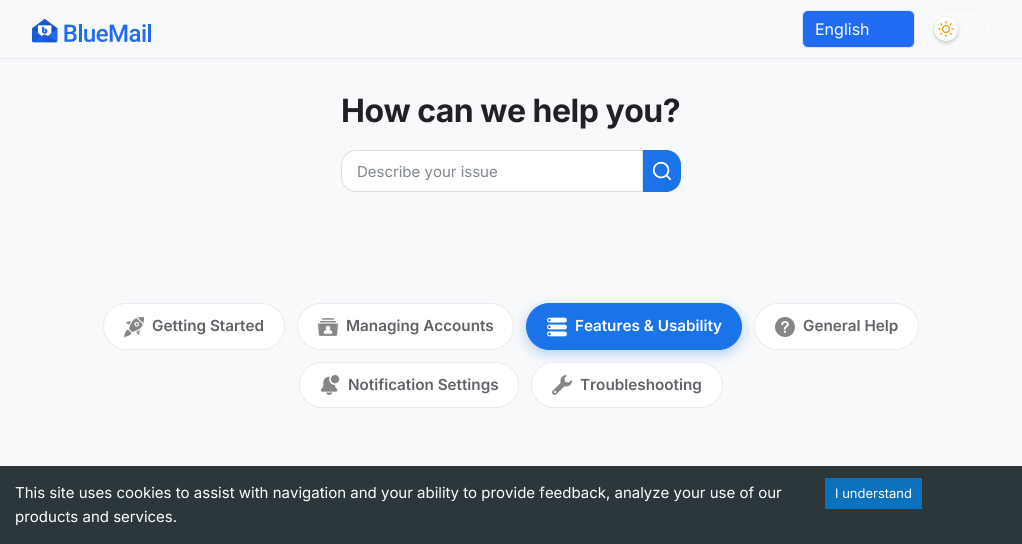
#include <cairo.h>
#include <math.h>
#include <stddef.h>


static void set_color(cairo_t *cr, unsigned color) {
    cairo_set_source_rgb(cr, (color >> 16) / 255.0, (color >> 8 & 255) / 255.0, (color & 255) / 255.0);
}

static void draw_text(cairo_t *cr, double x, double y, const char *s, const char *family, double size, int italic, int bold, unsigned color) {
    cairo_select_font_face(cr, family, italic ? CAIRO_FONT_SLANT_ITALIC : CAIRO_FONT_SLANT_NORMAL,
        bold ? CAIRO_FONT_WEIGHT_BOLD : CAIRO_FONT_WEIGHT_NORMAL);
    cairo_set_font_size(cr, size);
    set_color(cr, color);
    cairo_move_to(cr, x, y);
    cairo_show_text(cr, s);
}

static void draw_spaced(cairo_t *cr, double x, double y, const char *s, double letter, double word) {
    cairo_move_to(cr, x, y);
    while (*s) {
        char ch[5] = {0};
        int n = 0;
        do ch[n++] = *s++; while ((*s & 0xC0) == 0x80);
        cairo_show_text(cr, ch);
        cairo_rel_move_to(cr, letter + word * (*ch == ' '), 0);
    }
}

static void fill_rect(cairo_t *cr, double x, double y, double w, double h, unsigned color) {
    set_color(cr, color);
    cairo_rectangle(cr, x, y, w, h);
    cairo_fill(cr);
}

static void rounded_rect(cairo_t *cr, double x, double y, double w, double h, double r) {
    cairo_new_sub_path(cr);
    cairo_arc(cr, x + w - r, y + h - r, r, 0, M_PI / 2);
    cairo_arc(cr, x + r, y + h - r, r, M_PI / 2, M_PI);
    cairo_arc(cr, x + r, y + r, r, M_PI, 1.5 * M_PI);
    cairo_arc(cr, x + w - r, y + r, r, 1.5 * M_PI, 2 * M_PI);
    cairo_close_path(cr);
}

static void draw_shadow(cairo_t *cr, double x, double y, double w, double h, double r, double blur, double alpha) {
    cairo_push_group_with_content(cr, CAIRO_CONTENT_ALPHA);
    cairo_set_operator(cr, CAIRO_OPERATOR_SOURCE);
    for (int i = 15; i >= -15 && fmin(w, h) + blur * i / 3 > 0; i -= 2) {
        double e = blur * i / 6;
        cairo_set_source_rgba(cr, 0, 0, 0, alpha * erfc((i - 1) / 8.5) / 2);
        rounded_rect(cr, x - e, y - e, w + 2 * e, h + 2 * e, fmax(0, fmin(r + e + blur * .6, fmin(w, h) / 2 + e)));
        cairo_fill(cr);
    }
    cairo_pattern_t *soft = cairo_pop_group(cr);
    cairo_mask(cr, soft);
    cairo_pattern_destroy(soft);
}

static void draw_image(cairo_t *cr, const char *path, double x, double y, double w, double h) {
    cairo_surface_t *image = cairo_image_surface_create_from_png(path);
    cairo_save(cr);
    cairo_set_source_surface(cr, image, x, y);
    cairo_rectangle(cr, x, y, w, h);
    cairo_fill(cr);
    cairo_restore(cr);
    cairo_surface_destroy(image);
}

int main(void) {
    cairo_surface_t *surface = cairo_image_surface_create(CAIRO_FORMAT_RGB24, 1022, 544);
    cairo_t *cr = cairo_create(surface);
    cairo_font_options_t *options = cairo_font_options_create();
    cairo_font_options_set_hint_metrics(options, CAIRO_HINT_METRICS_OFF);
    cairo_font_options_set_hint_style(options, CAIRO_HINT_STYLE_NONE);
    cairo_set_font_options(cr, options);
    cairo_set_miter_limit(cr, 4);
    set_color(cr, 0xF8F9FA);
    cairo_paint(cr);
    fill_rect(cr, 0, 58, 1022, 1, 0xE8EAED);
    draw_image(cr, "assets/img1.png", 32, 19, 119, 24);
    set_color(cr, 0x1F6BF1);
    rounded_rect(cr, 802.5, 10.5, 112, 37, 5.5);
    cairo_fill_preserve(cr);
    set_color(cr, 0xDEE2E6);
    cairo_set_line_width(cr, 1);
    cairo_stroke(cr);
    draw_text(cr, 815, 35, "English", "Inter", 16, 0, 0, 0xFFFFFF);
    rounded_rect(cr, 931, 15, 58, 28, 14);
    cairo_set_source_rgba(cr, 1, 1, 1, 0.5);
    cairo_set_line_width(cr, 2);
    cairo_stroke(cr);
    set_color(cr, 0x000000);
    draw_shadow(cr, 934, 19, 24, 24, 12, 2, 0.2);
    set_color(cr, 0xFFFFFF);
    cairo_arc(cr, 946, 29, 12, 0, 2 * M_PI);
    cairo_fill(cr);
    draw_image(cr, "assets/img2.png", 938, 21, 16, 16);
    cairo_select_font_face(cr, "Inter", CAIRO_FONT_SLANT_NORMAL, CAIRO_FONT_WEIGHT_BOLD);
    cairo_set_font_size(cr, 32);
    set_color(cr, 0x202124);
    draw_spaced(cr, 341, 122, "How can we help you?", -0.5, 0);
    set_color(cr, 0xFFFFFF);
    cairo_new_path(cr);
    cairo_move_to(cr, 356, 150.5);
    cairo_line_to(cr, 642.5, 150.5);
    cairo_line_to(cr, 642.5, 191.5);
    cairo_line_to(cr, 356, 191.5);
    cairo_curve_to(cr, 348, 191.5, 341.5, 185, 341.5, 177);
    cairo_line_to(cr, 341.5, 165);
    cairo_curve_to(cr, 341.5, 157, 348, 150.5, 356, 150.5);
    cairo_close_path(cr);
    cairo_fill_preserve(cr);
    set_color(cr, 0xDADCE0);
    cairo_set_line_width(cr, 1);
    cairo_stroke(cr);
    draw_text(cr, 357, 177, "Describe your issue", "Inter", 15, 0, 0, 0x80868B);
    set_color(cr, 0x1A73E8);
    cairo_new_path(cr);
    cairo_move_to(cr, 643.5, 150.5);
    cairo_line_to(cr, 666, 150.5);
    cairo_curve_to(cr, 674, 150.5, 680.5, 157, 680.5, 165);
    cairo_line_to(cr, 680.5, 177);
    cairo_curve_to(cr, 680.5, 185, 674, 191.5, 666, 191.5);
    cairo_line_to(cr, 643.5, 191.5);
    cairo_close_path(cr);
    cairo_fill_preserve(cr);
    cairo_stroke(cr);
    draw_image(cr, "assets/img3.png", 652, 161, 20, 20);
    fill_rect(cr, 0, 466, 1022, 78, 0x2B373B);
    draw_text(cr, 15, 498, "This site uses cookies to assist with navigation and your ability to provide feedback, analyze your use of our", "Inter", 15, 0, 0, 0xFFFFFF);
    draw_text(cr, 15, 522, "products and services.", "Inter", 15, 0, 0, 0xFFFFFF);
    fill_rect(cr, 825, 478, 97, 31, 0x0B71BC);
    draw_text(cr, 835, 498, "I understand", "Inter", 13, 0, 0, 0xFFFFFF);
    rounded_rect(cr, 103.5, 303.5, 181, 46, 23);
    cairo_fill_preserve(cr);
    set_color(cr, 0xE8EAED);
    cairo_stroke(cr);
    draw_image(cr, "assets/img4.png", 124, 317, 20, 20);
    draw_text(cr, 152, 331, "Getting Started", "Inter SemiBold", 15.25, 0, 0, 0x5F6368);
    set_color(cr, 0xFFFFFF);
    rounded_rect(cr, 297.5, 303.5, 216, 46, 23);
    cairo_fill_preserve(cr);
    set_color(cr, 0xE8EAED);
    cairo_stroke(cr);
    draw_image(cr, "assets/img5.png", 318, 318, 20, 18);
    draw_text(cr, 346, 331, "Managing Accounts", "Inter SemiBold", 15.25, 0, 0, 0x5F6368);
    set_color(cr, 0x1A73E8);
    draw_shadow(cr, 526, 307, 216, 47, 23.5, 6, 0.3);
    set_color(cr, 0x1A73E8);
    rounded_rect(cr, 526.5, 303.5, 215, 46, 23);
    cairo_fill_preserve(cr);
    cairo_stroke(cr);
    draw_image(cr, "assets/img6.png", 547, 317, 20, 20);
    draw_text(cr, 575, 331, "Features & Usability", "Inter SemiBold", 15.25, 0, 0, 0xFFFFFF);
    rounded_rect(cr, 754.5, 303.5, 164, 46, 23);
    cairo_fill_preserve(cr);
    set_color(cr, 0xE8EAED);
    cairo_stroke(cr);
    draw_image(cr, "assets/img7.png", 775, 317, 20, 20);
    draw_text(cr, 803, 331, "General Help", "Inter SemiBold", 15.25, 0, 0, 0x5F6368);
    set_color(cr, 0xFFFFFF);
    rounded_rect(cr, 299.5, 362.5, 219, 45, 22.5);
    cairo_fill_preserve(cr);
    set_color(cr, 0xE8EAED);
    cairo_stroke(cr);
    draw_image(cr, "assets/img8.png", 320, 375, 20, 20);
    draw_text(cr, 348, 390, "Notification Settings", "Inter SemiBold", 15.25, 0, 0, 0x5F6368);
    set_color(cr, 0xFFFFFF);
    rounded_rect(cr, 531.5, 362.5, 191, 45, 22.5);
    cairo_fill_preserve(cr);
    set_color(cr, 0xE8EAED);
    cairo_stroke(cr);
    draw_image(cr, "assets/img9.png", 552, 375, 20, 20);
    draw_text(cr, 580, 390, "Troubleshooting", "Inter SemiBold", 15.25, 0, 0, 0x5F6368);
    cairo_surface_write_to_png(surface, "output.png");
    cairo_font_options_destroy(options);
    cairo_destroy(cr);
    cairo_surface_destroy(surface);
    return 0;
}
